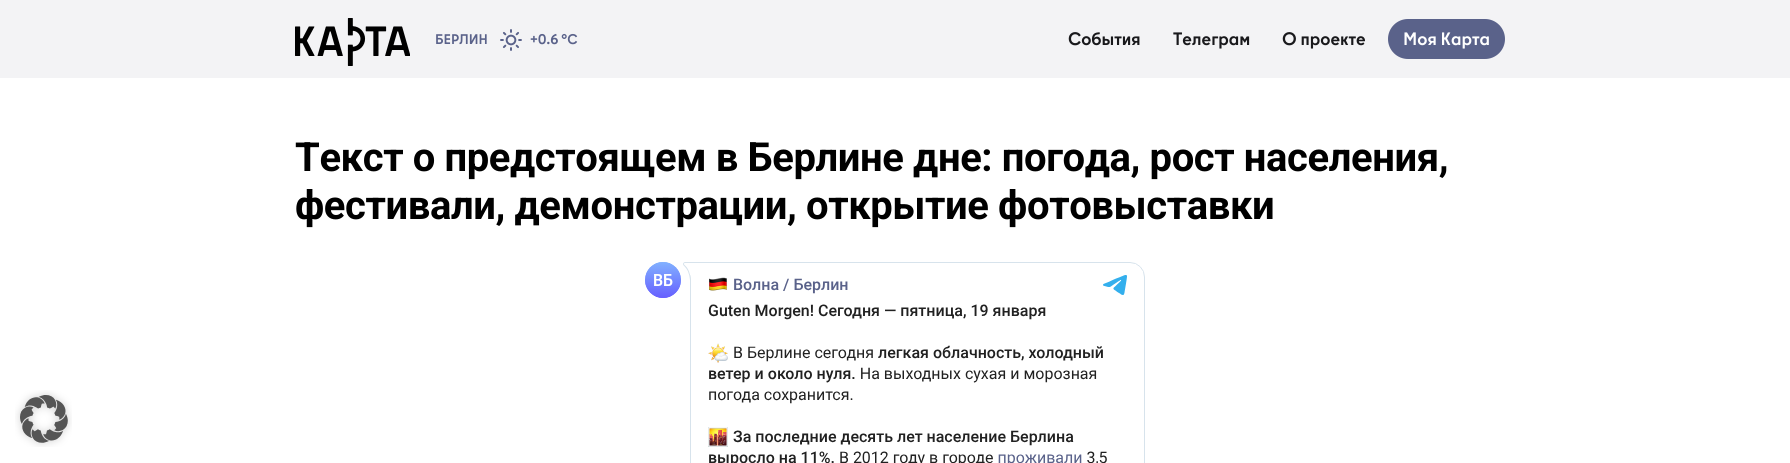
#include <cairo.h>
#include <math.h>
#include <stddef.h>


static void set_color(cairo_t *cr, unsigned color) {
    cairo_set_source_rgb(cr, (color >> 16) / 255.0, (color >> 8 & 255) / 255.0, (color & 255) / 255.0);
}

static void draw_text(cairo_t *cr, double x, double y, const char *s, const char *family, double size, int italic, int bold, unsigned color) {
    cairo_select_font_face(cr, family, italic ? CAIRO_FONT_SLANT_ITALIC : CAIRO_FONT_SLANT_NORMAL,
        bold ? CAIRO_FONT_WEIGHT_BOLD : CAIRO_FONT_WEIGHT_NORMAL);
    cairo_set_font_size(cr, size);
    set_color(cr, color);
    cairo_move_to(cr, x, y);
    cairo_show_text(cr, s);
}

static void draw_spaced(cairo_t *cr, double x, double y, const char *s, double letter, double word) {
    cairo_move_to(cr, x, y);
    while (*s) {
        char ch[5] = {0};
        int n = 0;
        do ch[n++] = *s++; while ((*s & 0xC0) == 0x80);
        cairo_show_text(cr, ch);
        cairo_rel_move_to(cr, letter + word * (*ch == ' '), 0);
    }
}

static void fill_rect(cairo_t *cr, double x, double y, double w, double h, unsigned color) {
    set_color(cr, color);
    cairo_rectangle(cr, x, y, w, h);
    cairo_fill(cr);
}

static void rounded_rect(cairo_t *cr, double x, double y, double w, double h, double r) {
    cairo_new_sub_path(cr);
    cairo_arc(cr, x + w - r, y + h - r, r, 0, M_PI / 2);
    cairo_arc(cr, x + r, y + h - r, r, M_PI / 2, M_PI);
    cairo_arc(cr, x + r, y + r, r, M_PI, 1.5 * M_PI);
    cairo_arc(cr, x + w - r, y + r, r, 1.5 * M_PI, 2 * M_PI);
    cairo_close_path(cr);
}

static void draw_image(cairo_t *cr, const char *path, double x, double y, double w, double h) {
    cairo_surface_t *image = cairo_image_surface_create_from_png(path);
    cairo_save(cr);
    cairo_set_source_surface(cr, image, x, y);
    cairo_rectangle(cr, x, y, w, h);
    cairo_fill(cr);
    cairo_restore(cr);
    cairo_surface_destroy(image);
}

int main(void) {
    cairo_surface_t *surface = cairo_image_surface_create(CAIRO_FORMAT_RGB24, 1790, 463);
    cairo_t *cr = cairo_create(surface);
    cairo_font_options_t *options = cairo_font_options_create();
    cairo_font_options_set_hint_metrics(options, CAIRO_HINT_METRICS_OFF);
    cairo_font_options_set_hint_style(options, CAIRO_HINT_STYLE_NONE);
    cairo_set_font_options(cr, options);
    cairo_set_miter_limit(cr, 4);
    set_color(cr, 0xFFFFFF);
    cairo_paint(cr);
    fill_rect(cr, 0, 0, 1790, 78, 0xF3F3F5);
    draw_image(cr, "assets/img1.png", 295, 18, 115, 48);
    draw_text(cr, 435, 44, "БЕРЛИН", "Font", 14, 0, 1, 0x5A628A);
    draw_image(cr, "assets/img2.png", 500, 29, 22, 22);
    draw_text(cr, 530, 44, "+0.6 °C", "Font", 14, 0, 1, 0x5A628A);
    draw_text(cr, 1068, 45, "События", "Font", 18, 0, 1, 0x19191C);
    draw_text(cr, 1173, 45, "Телеграм", "Font", 18, 0, 1, 0x19191C);
    draw_text(cr, 1282, 45, "О проекте", "Font", 18, 0, 1, 0x19191C);
    set_color(cr, 0x5A628A);
    rounded_rect(cr, 1388, 19, 117, 40, 20);
    cairo_fill(cr);
    draw_text(cr, 1403, 45, "Моя Карта", "Font", 18, 0, 1, 0xFFFFFF);
    cairo_select_font_face(cr, "Roboto", CAIRO_FONT_SLANT_NORMAL, CAIRO_FONT_WEIGHT_BOLD);
    cairo_set_font_size(cr, 40);
    set_color(cr, 0x000000);
    draw_spaced(cr, 295, 171, "Текст о предстоящем в Берлине дне: погода, рост населения,", -0.4, 0);
    draw_spaced(cr, 295, 219, "фестивали, демонстрации, открытие фотовыставки", -0.4, 0);
    draw_image(cr, "assets/img3.png", 645, 262, 500, 201);
    draw_image(cr, "assets/img4.png", 15, 390, 57, 57);
    cairo_surface_write_to_png(surface, "output.png");
    cairo_font_options_destroy(options);
    cairo_destroy(cr);
    cairo_surface_destroy(surface);
    return 0;
}
